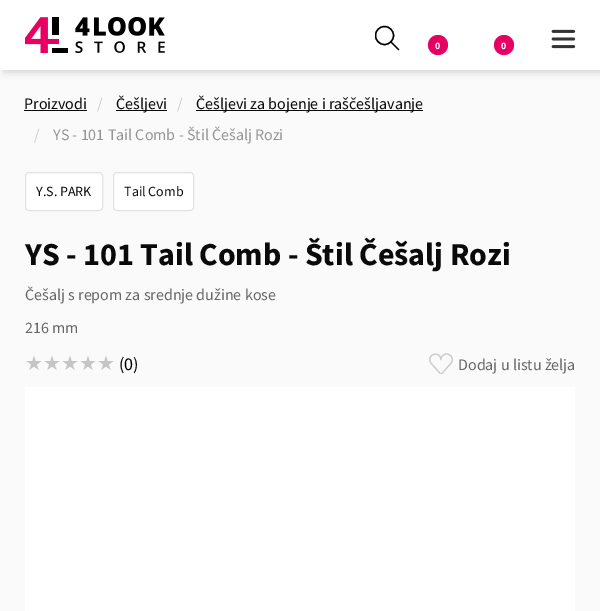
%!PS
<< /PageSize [600 611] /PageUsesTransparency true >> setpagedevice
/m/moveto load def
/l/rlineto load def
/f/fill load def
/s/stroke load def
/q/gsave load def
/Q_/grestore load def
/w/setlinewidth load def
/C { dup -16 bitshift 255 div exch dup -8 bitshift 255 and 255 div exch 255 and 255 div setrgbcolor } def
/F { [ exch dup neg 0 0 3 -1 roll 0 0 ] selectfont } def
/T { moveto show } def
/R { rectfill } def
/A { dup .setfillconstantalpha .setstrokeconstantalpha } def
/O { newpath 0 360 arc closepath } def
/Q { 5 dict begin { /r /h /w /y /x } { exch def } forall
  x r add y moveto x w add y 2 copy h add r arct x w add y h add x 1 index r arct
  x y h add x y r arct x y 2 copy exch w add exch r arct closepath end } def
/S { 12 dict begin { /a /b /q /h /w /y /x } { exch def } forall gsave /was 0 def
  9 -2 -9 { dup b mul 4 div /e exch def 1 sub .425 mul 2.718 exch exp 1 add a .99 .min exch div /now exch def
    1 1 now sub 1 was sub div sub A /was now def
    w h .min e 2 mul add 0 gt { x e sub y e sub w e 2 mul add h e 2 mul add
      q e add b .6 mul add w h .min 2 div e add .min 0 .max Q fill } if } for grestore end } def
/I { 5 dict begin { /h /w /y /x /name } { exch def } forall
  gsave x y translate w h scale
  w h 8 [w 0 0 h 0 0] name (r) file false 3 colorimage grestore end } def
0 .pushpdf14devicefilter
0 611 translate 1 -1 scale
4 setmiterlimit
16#FAFAFA C
0 0 600 611 R
16#000000 C
4 4 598 68 0 3.5 .16 S
16#FFFFFF C
0 0 600 70 R
(1.rgb) 25 17 140 36 I
q
375 25 24 26 rectclip
16#000000 C
1.4 w
384.5 35.5 9 O s
Q_
16#000000 C
1.4 w
1 setlinecap
1 setlinejoin
398.5 49.5 m -7.5 -7.5 l s
16#E60064 C
438 45 10 O f
/SourceSansPro-Bold 10 F
16#FFFFFF C
(0) 435 49 T
16#E60064 C
504 45 10 O f
16#FFFFFF C
(0) 501 49 T
(2.rgb) 551 29 25 20 I
/SourceSansPro-Regular 16 F
16#0A0A0A C
(Proizvodi) 24 109 T
24 110 63 1 R
16#CCCCCC C
(/) 97 109 T
16#0A0A0A C
116 110 51 1 R
(Češljevi) 116 109 T
16#CCCCCC C
(/) 177 109 T
16#0A0A0A C
196 110 227 1 R
(Češljevi za bojenje i raščešljavanje) 196 109 T
16#CCCCCC C
(/) 34 140 T
16#959595 C
(YS - 101 Tail Comb - Štil Češalj Rozi) 53 140 T
16#FFFFFF C
25.5 172.5 77 38 3.5 Q q f Q_
16#E1E1E1 C
1 w
0 setlinecap
0 setlinejoin
s
/SourceSansPro-Regular 14 F
16#0A0A0A C
(Y.S. PARK) 36 196 T
16#FFFFFF C
113.5 172.5 80 38 3.5 Q q f Q_
16#E1E1E1 C
s
16#0A0A0A C
(Tail Comb) 124 196 T
/SourceSansPro-Bold 32 F
(YS - 101 Tail Comb - Štil Češalj Rozi) 25 265 T
/SourceSansPro-Regular 16 F
16#676767 C
(Češalj s repom za srednje dužine kose) 25 300 T
(216 mm) 25 333 T
/DejaVuSans-Regular 20 F
16#C5C5C5 C
(★★★★★) 25 370 T
/SourceSansPro-Regular 18 F
16#000000 C
(\(0\)) 119 370 T
(3.rgb) 429 353 24 21 I
/SourceSansPro-Regular 16 F
16#676767 C
(Dodaj u listu želja) 458 370 T
16#FFFFFF C
25 387 550 224 R
.poppdf14devicefilter showpage
